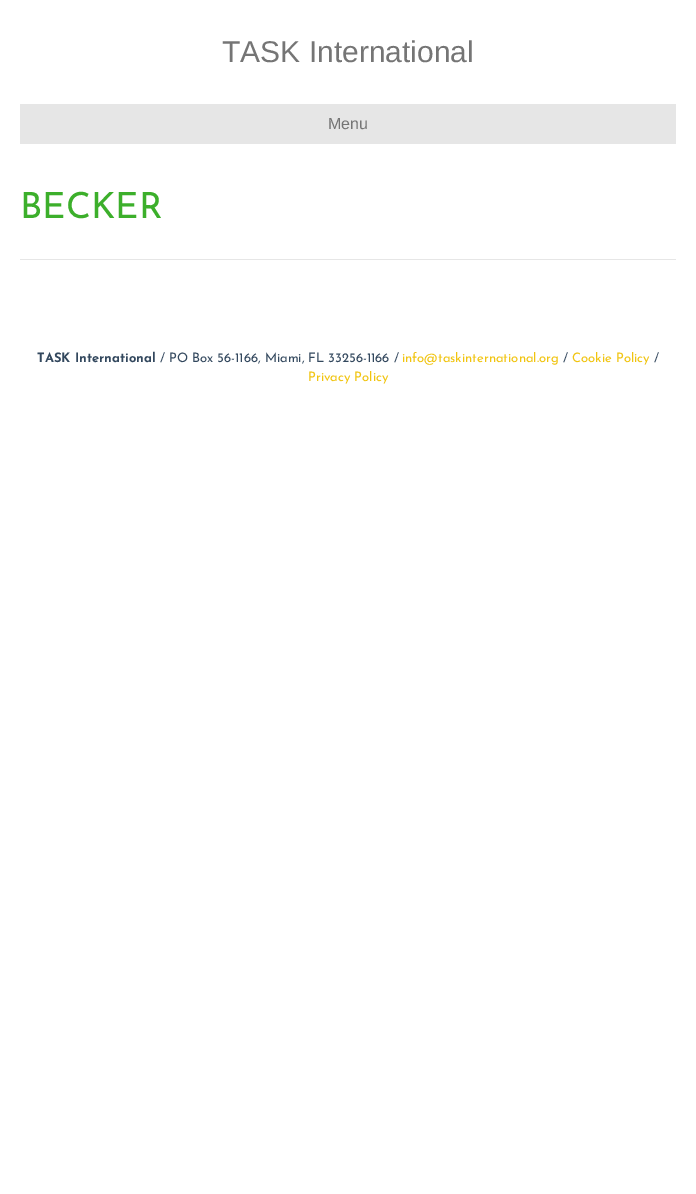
%!PS
<< /PageSize [696 1194] >> setpagedevice
/C { dup -16 bitshift 255 div exch dup -8 bitshift 255 and 255 div exch 255 and 255 div setrgbcolor } def
/F { [ exch dup neg 0 0 3 -1 roll 0 0 ] selectfont } def
/T { moveto show } def
/R { rectfill } def
0 1194 translate 1 -1 scale
4 setmiterlimit
16#FFFFFF C
0 0 696 1194 R
/LiberationSans-Regular 30 F
16#757575 C
(TASK International) 222 62 T
16#E6E6E6 C
20 104 656 40 R
/LiberationSans-Regular 16 F
16#757575 C
(Menu) 328 129 T
/JosefinSans-Regular 36 F
16#3CAF2B C
(BECKER) 20 218 T
16#E6E6E6 C
20 259 656 1 R
/JosefinSans-Bold 13 F
16#33485E C
(TASK International) 37 362 T
/JosefinSans-Regular 13 F
(/ PO Box 56-1166, Miami, FL 33256-1166 /) 160 362 T
16#F1C40E C
(info@taskinternational.org) 402 362 T
16#33485E C
(/) 563 362 T
16#F1C40E C
(Cookie Policy) 572 362 T
16#33485E C
(/) 654 362 T
16#F1C40E C
(Privacy Policy) 308 381 T
showpage
